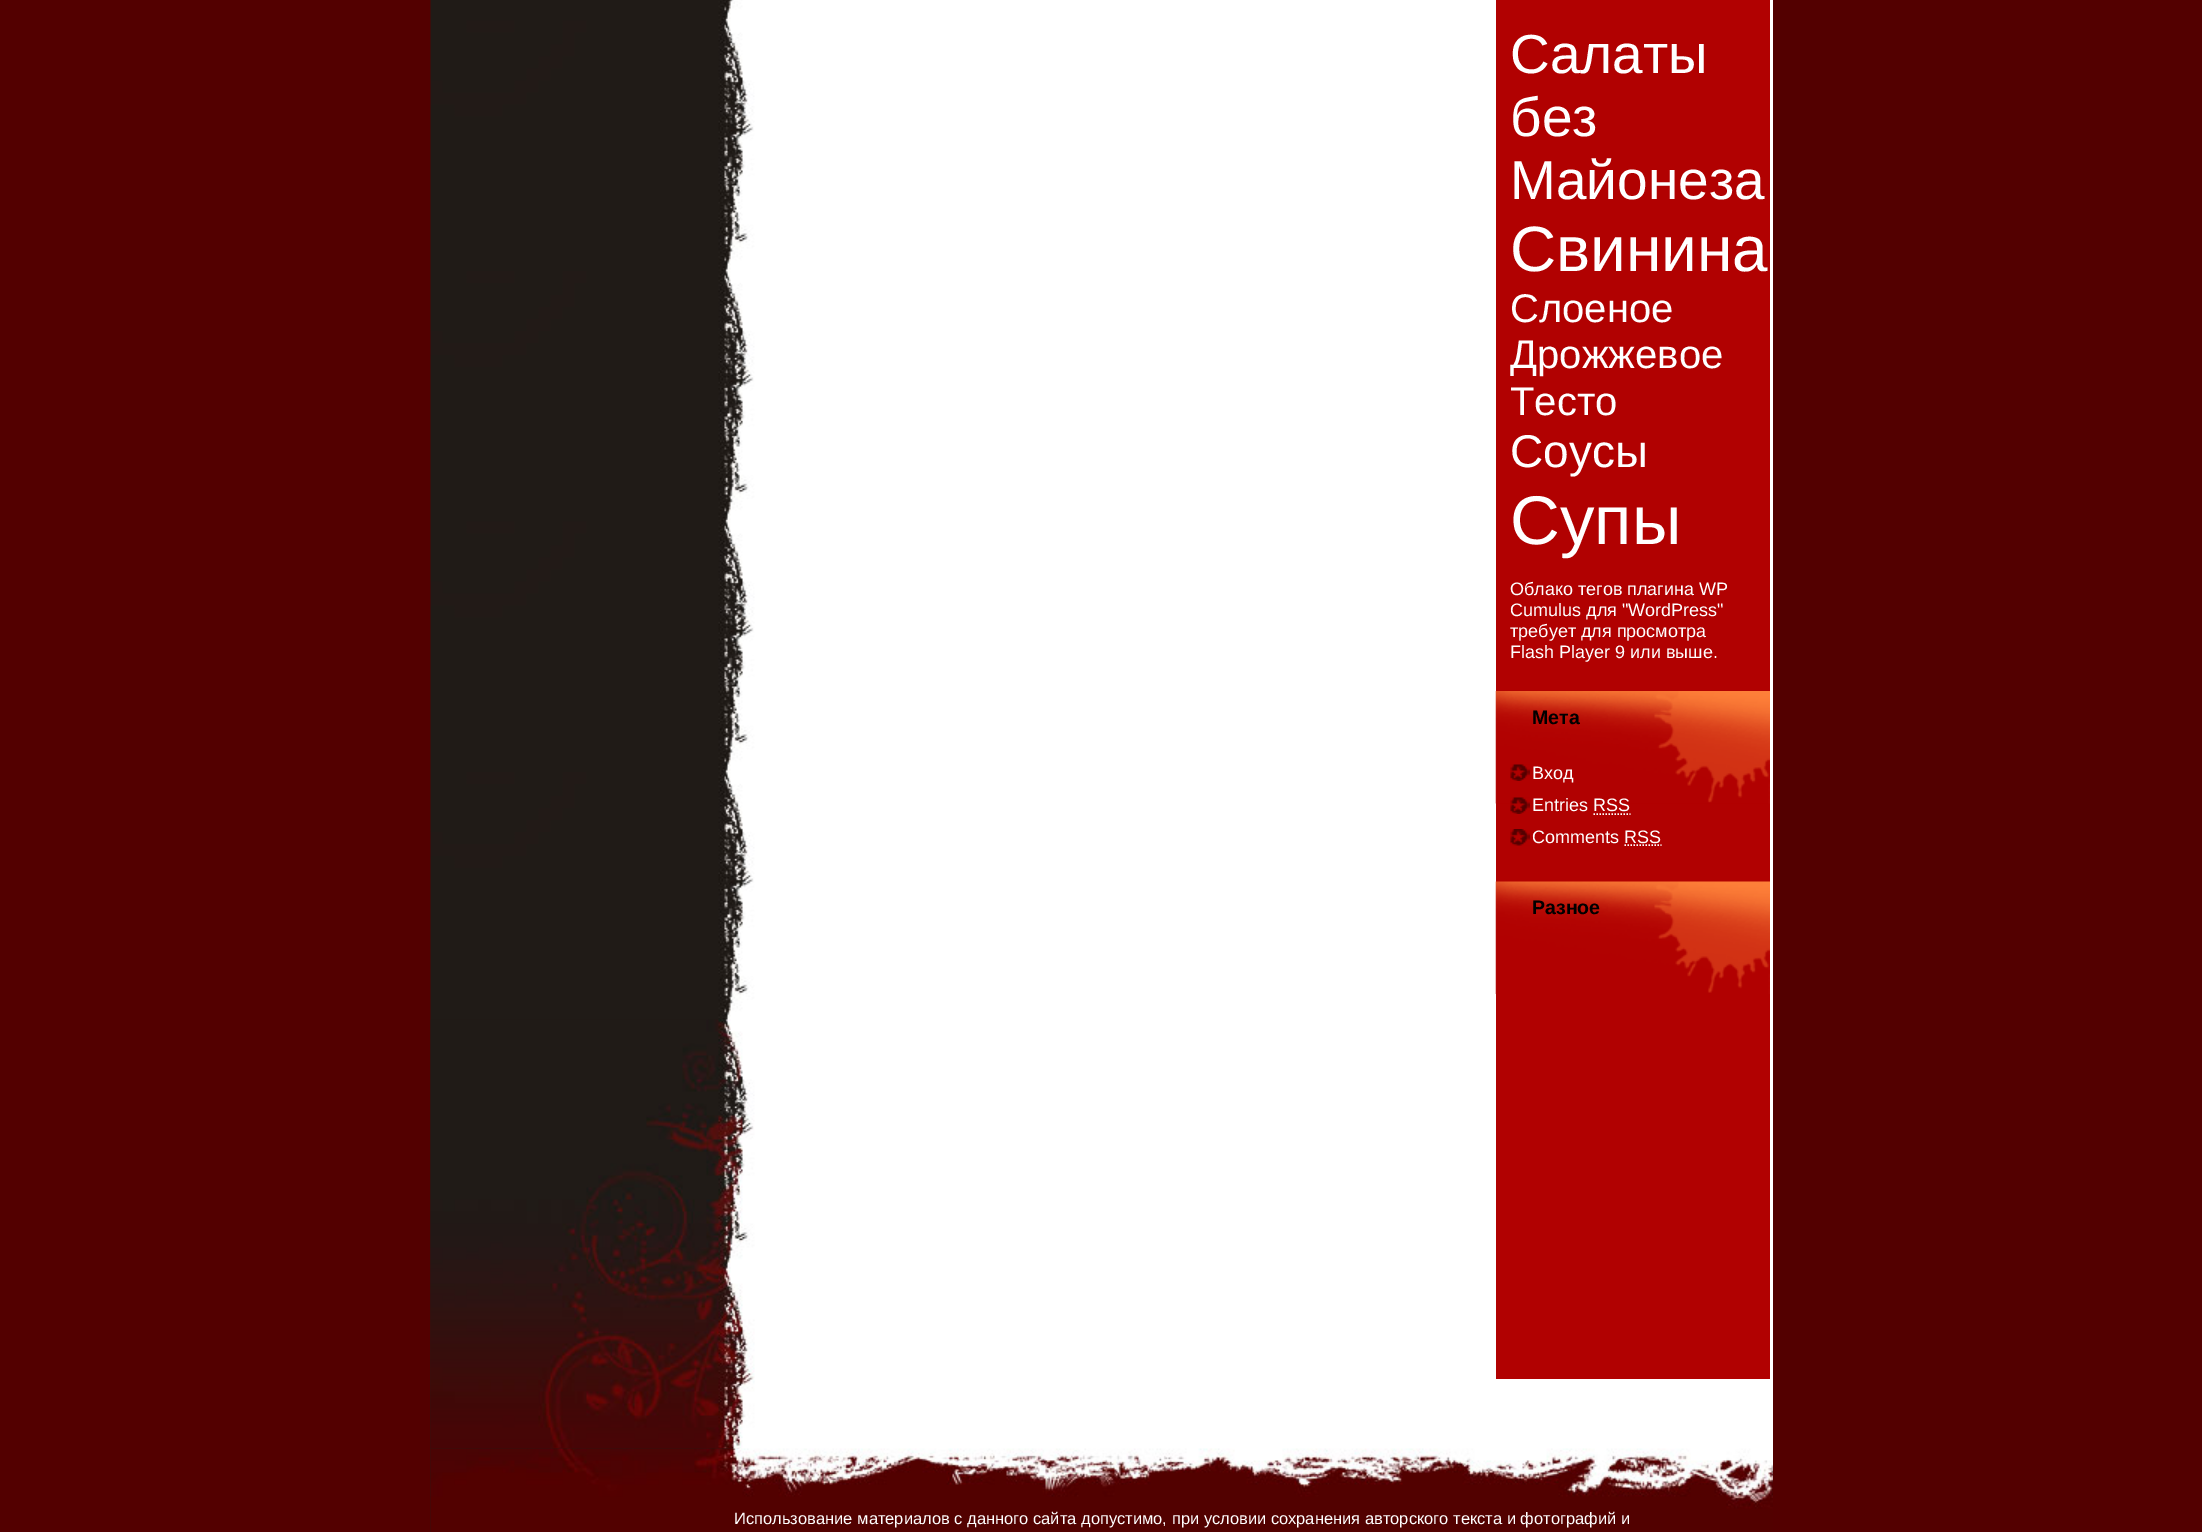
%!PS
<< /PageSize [2202 1532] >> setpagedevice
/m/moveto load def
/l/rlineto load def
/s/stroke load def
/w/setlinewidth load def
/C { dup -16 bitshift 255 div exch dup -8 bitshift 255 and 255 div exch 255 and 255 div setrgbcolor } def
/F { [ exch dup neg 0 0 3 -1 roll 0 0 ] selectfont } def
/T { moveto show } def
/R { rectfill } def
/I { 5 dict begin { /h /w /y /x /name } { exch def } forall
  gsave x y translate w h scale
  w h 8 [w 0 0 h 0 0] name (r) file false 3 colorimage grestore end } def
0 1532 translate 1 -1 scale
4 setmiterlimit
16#530000 C
0 0 2202 1532 R
(1.rgb) 430 0 1343 1532 I
(2.rgb) 430 1019 325 430 I
16#B10101 C
1496 0 274 1379 R
/LiberationSans-Regular 55 F
16#FFFFFF C
(Салаты) 1510 73 T
(без) 1510 136 T
(Майонеза) 1510 199 T
/LiberationSans-Regular 64 F
(Свинина) 1510 271 T
/LiberationSans-Regular 40 F
(Слоеное) 1510 322 T
(Дрожжевое) 1510 368 T
(Тесто) 1510 415 T
/LiberationSans-Regular 46 F
(Соусы) 1510 467 T
/LiberationSans-Regular 69 F
(Супы) 1510 544 T
/LiberationSans-Regular 18 F
(Облако тегов плагина WP) 1510 595 T
(Cumulus для "WordPress") 1510 616 T
(требует для просмотра) 1510 637 T
(Flash Player 9 или выше.) 1510 658 T
(3.rgb) 1495 691 275 113 I
/LiberationSans-Bold 19.5 F
16#000000 C
(Мета) 1532 724 T
(4.rgb) 1510 764 20 17 I
/LiberationSans-Regular 18 F
16#FFFFFF C
(Вход) 1532 779 T
(4.rgb) 1510 797 20 17 I
(Entries RSS) 1532 811 T
1.5 w
[1.5 1.5] 0 setdash
1593.5 814 m 37 0 l s
(5.rgb) 1510 829 20 17 I
(Comments RSS) 1532 843 T
1624.5 845 m 37 0 l s
(6.rgb) 1495 881 275 113 I
/LiberationSans-Bold 19.5 F
16#000000 C
(Разное) 1532 914 T
(7.rgb) 430 1448 1343 84 I
/LiberationSans-Regular 16.5 F
16#FFFFFF C
(Использование материалов с данного сайта допустимо, при условии сохранения авторского текста и фотографий и) 734 1524 T
showpage
